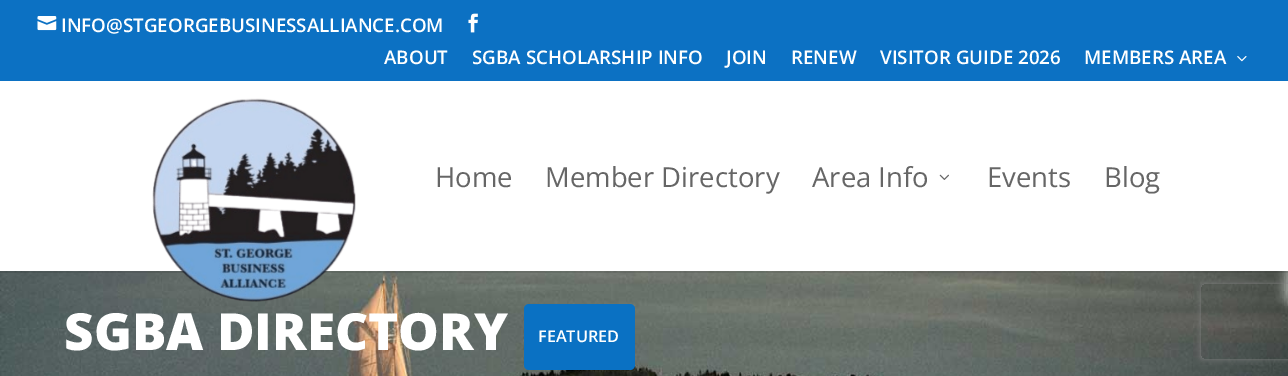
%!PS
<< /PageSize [1288 376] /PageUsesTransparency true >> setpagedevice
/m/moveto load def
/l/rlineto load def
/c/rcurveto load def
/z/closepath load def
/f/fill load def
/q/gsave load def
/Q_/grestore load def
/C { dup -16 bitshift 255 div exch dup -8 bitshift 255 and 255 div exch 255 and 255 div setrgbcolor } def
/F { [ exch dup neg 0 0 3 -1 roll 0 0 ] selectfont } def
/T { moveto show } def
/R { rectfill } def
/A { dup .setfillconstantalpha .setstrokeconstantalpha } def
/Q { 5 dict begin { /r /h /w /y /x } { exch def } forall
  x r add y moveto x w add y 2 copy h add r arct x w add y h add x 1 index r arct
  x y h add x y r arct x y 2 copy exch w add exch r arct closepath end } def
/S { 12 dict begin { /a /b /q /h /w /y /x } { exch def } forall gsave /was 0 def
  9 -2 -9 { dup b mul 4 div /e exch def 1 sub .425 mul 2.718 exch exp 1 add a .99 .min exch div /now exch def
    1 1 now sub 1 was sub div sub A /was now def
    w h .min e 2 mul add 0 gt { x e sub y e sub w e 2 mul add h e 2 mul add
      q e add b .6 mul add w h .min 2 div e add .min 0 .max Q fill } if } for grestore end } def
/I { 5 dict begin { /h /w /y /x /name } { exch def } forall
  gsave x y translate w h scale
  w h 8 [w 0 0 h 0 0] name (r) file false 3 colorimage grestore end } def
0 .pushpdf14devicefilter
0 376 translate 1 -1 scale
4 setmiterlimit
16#FFFFFF C
0 0 1288 376 R
16#0C71C3 C
0 0 1288 81 R
(1.rgb) 37 16 20 15 I
/OpenSans-SemiBold 18.75 F
16#FFFFFF C
(INFO@STGEORGEBUSINESSALLIANCE.COM) 61 32 T
(2.rgb) 468 13 10 20 I
(ABOUT) 384 64 T
(SGBA SCHOLARSHIP INFO) 472 64 T
(JOIN) 726 64 T
(RENEW) 791 64 T
(VISITOR GUIDE 2026) 880 64 T
(MEMBERS AREA) 1084 64 T
(3.rgb) 1237 56 10 6 I
(6.rgb) 0 271 1288 105 I
0.1 A
16#000000 C
0 271 m 0 2 l 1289 0 l 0 -190 l 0 188 l z f
1 A
(4.rgb) 152 98 204 204 I
/OpenSans-Regular 27.5 F
16#666666 C
(Home) 435 187 T
(Member Directory) 545 187 T
(Area Info) 812 187 T
(5.rgb) 939 174 10 6 I
(Events) 987 187 T
(Blog) 1104 187 T
/OpenSans-ExtraBold 51.25 F
16#FFFFFF C
(SGBA DIRECTORY) 64 350 T
16#0A71C3 C
524 304 111 66 5 Q f
/OpenSans-SemiBold 16.25 F
16#FFFFFF C
(FEATURED) 538 342 T
q
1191 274 m 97 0 l 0 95 l -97 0 l z 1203.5 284 m 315 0 l 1.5 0 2.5 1 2.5 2.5 c 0 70 l 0 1.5 -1 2.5 -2.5 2.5 c -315 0 l -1.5 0 -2.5 -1 -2.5 -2.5 c 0 -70 l 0 -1.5 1 -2.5 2.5 -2.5 c z eoclip newpath
16#808080 C
1201 284 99 75 2.5 3 1 S
Q_
.poppdf14devicefilter showpage
